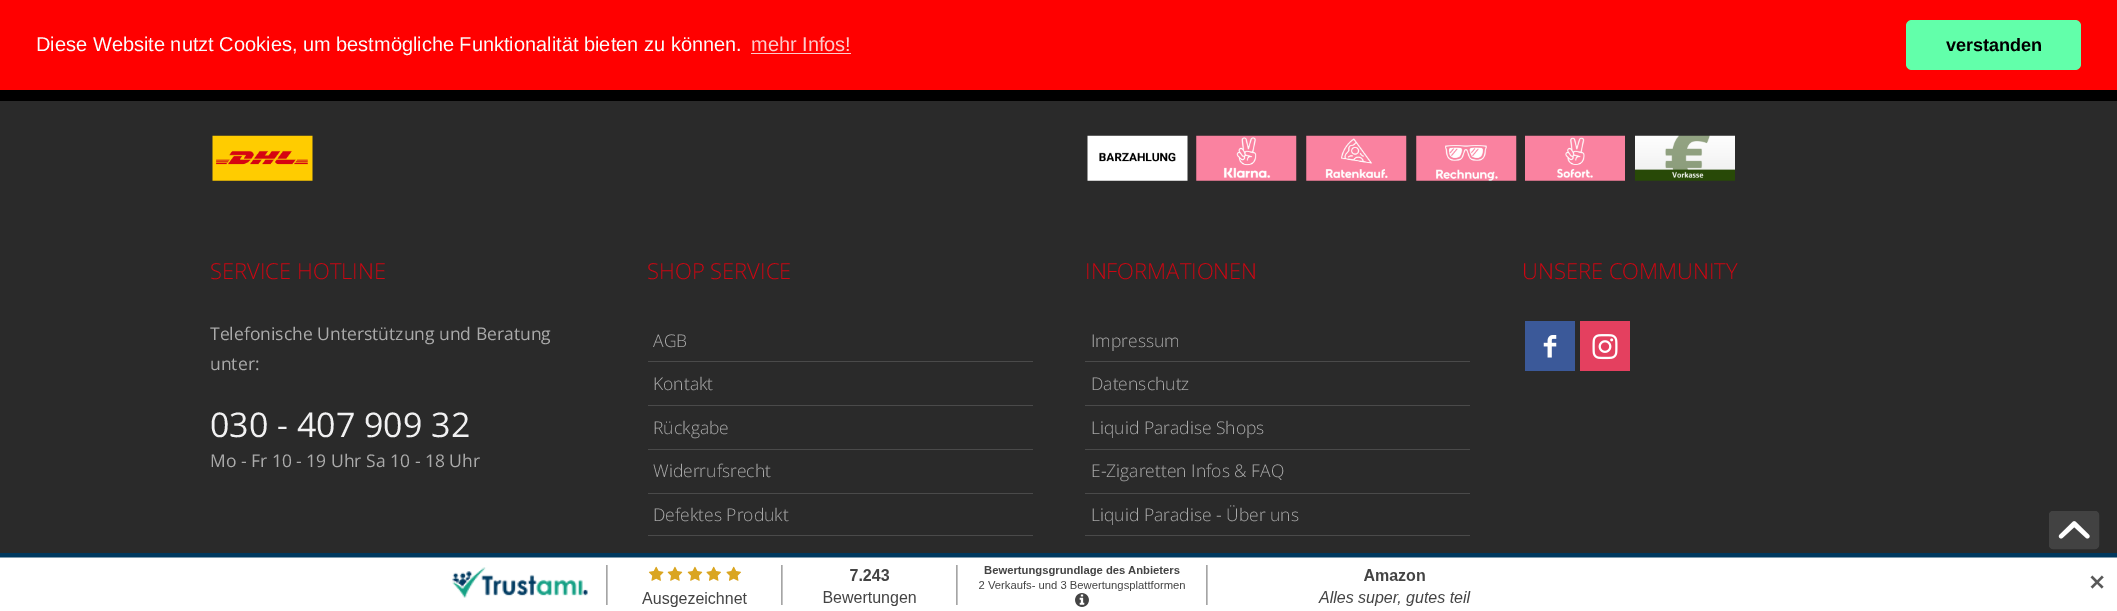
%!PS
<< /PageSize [2117 611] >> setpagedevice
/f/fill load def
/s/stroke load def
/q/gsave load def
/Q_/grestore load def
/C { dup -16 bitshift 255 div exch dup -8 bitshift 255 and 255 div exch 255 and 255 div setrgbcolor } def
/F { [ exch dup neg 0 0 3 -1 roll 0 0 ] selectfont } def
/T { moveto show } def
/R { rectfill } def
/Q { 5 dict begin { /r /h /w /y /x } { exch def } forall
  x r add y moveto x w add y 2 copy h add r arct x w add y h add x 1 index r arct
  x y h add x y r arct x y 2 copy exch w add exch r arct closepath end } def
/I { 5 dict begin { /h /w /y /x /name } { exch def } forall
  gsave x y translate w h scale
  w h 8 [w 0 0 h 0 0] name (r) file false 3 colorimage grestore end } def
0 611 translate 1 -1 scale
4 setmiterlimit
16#000000 C
0 0 2117 611 R
16#FF0000 C
0 0 2117 90 R
/LiberationSans-Regular 20 F
16#FCFCFC C
(Diese Website nutzt Cookies, um bestmögliche Funktionalität bieten zu können.) 36 51 T
16#FDCACA C
(mehr Infos!) 751 51 T
751 53 100 1 R
16#62FFAA C
1906 20 175 50 6 Q f
/LiberationSans-Bold 18 F
16#000000 C
(verstanden) 1946 51 T
16#2A2A2A C
0 101 2117 452 R
(1.rgb) 212 135 101 46 I
(2.rgb) 1087 135 101 46 I
(3.rgb) 1196 135 101 46 I
(4.rgb) 1306 135 101 46 I
(5.rgb) 1416 135 101 46 I
(6.rgb) 1525 135 100 46 I
(7.rgb) 1635 135 100 46 I
/OpenSans-Light 22 F
16#CD0612 C
(SERVICE HOTLINE) 210 279 T
/OpenSans-Regular 17.5 F
16#AAAAAA C
(Telefonische Unterstützung und Beratung) 210 340 T
(unter:) 210 370 T
/OpenSans-Regular 34 F
16#F1F1F2 C
(030 - 407 909 32) 210 437 T
/OpenSans-Regular 17.5 F
16#AAAAAA C
(Mo - Fr 10 - 19 Uhr Sa 10 - 18 Uhr) 210 467 T
/OpenSans-Light 22 F
16#CD0612 C
(SHOP SERVICE) 647 279 T
16#4A4A4A C
648 361 385 1 R
/OpenSans-Light 17.5 F
16#AAAAAA C
(AGB) 653 347 T
16#4A4A4A C
648 405 385 1 R
16#AAAAAA C
(Kontakt) 653 390 T
16#4A4A4A C
648 449 385 1 R
16#AAAAAA C
(Rückgabe) 653 434 T
16#4A4A4A C
648 493 385 1 R
16#AAAAAA C
(Widerrufsrecht) 653 477 T
16#4A4A4A C
648 535 385 1 R
16#AAAAAA C
(Defektes Produkt) 653 521 T
/OpenSans-Light 22 F
16#CD0612 C
(INFORMATIONEN) 1085 279 T
16#4A4A4A C
1085 361 385 1 R
/OpenSans-Light 17.5 F
16#AAAAAA C
(Impressum) 1091 347 T
16#4A4A4A C
1085 405 385 1 R
16#AAAAAA C
(Datenschutz) 1091 390 T
16#4A4A4A C
1085 449 385 1 R
16#AAAAAA C
(Liquid Paradise Shops) 1091 434 T
16#4A4A4A C
1085 493 385 1 R
16#AAAAAA C
(E-Zigaretten Infos & FAQ) 1091 477 T
16#4A4A4A C
1085 535 385 1 R
16#AAAAAA C
(Liquid Paradise - Über uns) 1091 521 T
/OpenSans-Light 22 F
16#CD0612 C
(UNSERE COMMUNITY) 1522 279 T
16#3B5999 C
1525 321 50 50 R
(8.rgb) 1543 335 14 23 I
16#E4405F C
1580 321 50 50 R
(9.rgb) 1592 334 26 26 I
(10.rgb) 0 553 2117 58 I
/DejaVuSans-Bold 21 F
16#595959 C
(✕) 2088 590 T
16#424242 C
2049.5 511.5 49 37 3.5 Q q f Q_
s
(11.rgb) 2058 521 32 18 I
showpage
